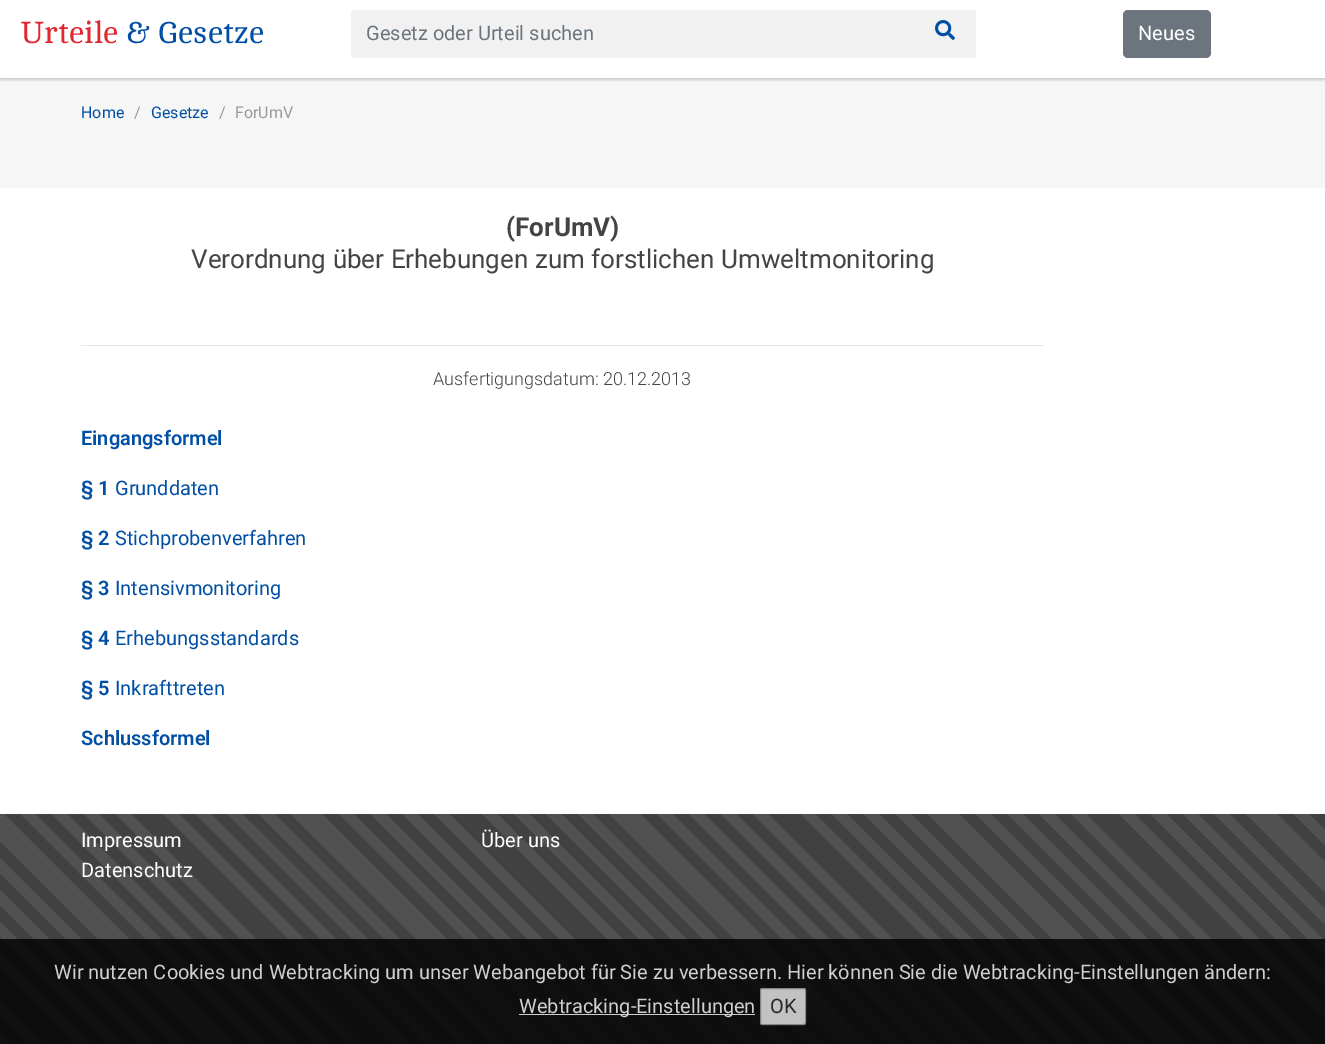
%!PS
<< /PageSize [1325 1044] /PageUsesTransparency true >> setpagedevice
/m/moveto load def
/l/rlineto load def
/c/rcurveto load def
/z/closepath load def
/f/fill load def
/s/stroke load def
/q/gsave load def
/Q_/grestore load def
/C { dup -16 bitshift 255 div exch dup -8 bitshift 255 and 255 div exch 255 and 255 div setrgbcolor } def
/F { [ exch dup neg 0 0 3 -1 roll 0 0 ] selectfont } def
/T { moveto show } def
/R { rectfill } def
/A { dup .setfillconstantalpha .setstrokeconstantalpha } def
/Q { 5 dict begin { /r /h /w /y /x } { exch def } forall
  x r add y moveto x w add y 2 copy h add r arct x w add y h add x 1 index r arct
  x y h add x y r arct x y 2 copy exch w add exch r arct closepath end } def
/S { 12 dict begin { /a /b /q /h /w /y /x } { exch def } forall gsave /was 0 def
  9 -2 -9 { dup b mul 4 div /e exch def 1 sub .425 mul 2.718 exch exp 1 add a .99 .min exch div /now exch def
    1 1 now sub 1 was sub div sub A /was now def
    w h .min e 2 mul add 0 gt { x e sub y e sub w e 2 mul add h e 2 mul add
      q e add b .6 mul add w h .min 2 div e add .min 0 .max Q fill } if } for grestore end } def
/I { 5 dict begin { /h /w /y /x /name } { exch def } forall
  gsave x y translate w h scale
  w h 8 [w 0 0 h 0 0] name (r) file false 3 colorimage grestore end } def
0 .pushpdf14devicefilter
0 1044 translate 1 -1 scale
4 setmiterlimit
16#F6F6F6 C
0 0 1325 1044 R
16#14171C C
0 4 1325 77 0 .5 .1 S
-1 -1 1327 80 0 .5 .1 S
16#FFFFFF C
0 0 1325 78 R
/Cambo-Regular 31.25 F
16#E12830 C
(Urteile) 20 43 T
16#014FA4 C
(& Gesetze) 126 43 T
16#F1F1F1 C
356 10 m 558 0 l 0 48 l -558 0 l -3 0 -5 -2 -5 -5 c 0 -38 l 0 -3 2 -5 5 -5 c z f
/Roboto-Regular 20 F
16#6C757D C
(Gesetz oder Urteil suchen) 366 40 T
16#F1F1F1 C
914 10 62 48 R
(1.rgb) 935 20 20 20 I
16#6C757D C
1123 10 88 48 5 Q f
16#FFFFFF C
(Neues) 1138 40 T
/Roboto-Regular 16 F
16#014FA4 C
(Home) 81 118 T
16#999999 C
(/) 134 118 T
16#014FA4 C
(Gesetze) 151 118 T
16#999999 C
(/) 219 118 T
(ForUmV) 235 118 T
16#FFFFFF C
0 188 1325 626 R
/Roboto-Bold 26 F
16#444444 C
(\(ForUmV\)) 506 236 T
/Roboto-Regular 26 F
(Verordnung über Erhebungen zum forstlichen Umweltmonitoring) 191 268 T
16#E6E6E6 C
81 345 963 1 R
/Roboto-Light 18 F
16#444444 C
(Ausfertigungsdatum: 20.12.2013) 433 385 T
/Roboto-SemiBold 20 F
16#014FA4 C
(Eingangsformel) 81 445 T
(§ 1) 81 495 T
/Roboto-Regular 20 F
(Grunddaten) 115 495 T
/Roboto-SemiBold 20 F
(§ 2) 81 545 T
/Roboto-Regular 20 F
(Stichprobenverfahren) 115 545 T
/Roboto-SemiBold 20 F
(§ 3) 81 595 T
/Roboto-Regular 20 F
(Intensivmonitoring) 115 595 T
/Roboto-SemiBold 20 F
(§ 4) 81 645 T
/Roboto-Regular 20 F
(Erhebungsstandards) 115 645 T
/Roboto-SemiBold 20 F
(§ 5) 81 695 T
/Roboto-Regular 20 F
(Inkrafttreten) 115 695 T
/Roboto-SemiBold 20 F
(Schlussformel) 81 745 T
q 0 814 m 1325 0 l 0 125 l -1325 0 l z clip newpath
<< /ShadingType 2 /ColorSpace /DeviceRGB /Coords [269 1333 1064 537] /Extend [true true] /Function << /FunctionType 3 /Domain [0 1] /Functions [<< /FunctionType 2 /Domain [0 1] /C0 [.255 .255 .255] /C1 [.255 .255 .255] /N 1 >> << /FunctionType 2 /Domain [0 1] /C0 [.318 .318 .318] /C1 [.318 .318 .318] /N 1 >> << /FunctionType 2 /Domain [0 1] /C0 [.255 .255 .255] /C1 [.255 .255 .255] /N 1 >> << /FunctionType 2 /Domain [0 1] /C0 [.318 .318 .318] /C1 [.318 .318 .318] /N 1 >> << /FunctionType 2 /Domain [0 1] /C0 [.255 .255 .255] /C1 [.255 .255 .255] /N 1 >> << /FunctionType 2 /Domain [0 1] /C0 [.318 .318 .318] /C1 [.318 .318 .318] /N 1 >> << /FunctionType 2 /Domain [0 1] /C0 [.255 .255 .255] /C1 [.255 .255 .255] /N 1 >> << /FunctionType 2 /Domain [0 1] /C0 [.318 .318 .318] /C1 [.318 .318 .318] /N 1 >> << /FunctionType 2 /Domain [0 1] /C0 [.255 .255 .255] /C1 [.255 .255 .255] /N 1 >> << /FunctionType 2 /Domain [0 1] /C0 [.318 .318 .318] /C1 [.318 .318 .318] /N 1 >> << /FunctionType 2 /Domain [0 1] /C0 [.255 .255 .255] /C1 [.255 .255 .255] /N 1 >> << /FunctionType 2 /Domain [0 1] /C0 [.318 .318 .318] /C1 [.318 .318 .318] /N 1 >> << /FunctionType 2 /Domain [0 1] /C0 [.255 .255 .255] /C1 [.255 .255 .255] /N 1 >> << /FunctionType 2 /Domain [0 1] /C0 [.318 .318 .318] /C1 [.318 .318 .318] /N 1 >> << /FunctionType 2 /Domain [0 1] /C0 [.255 .255 .255] /C1 [.255 .255 .255] /N 1 >> << /FunctionType 2 /Domain [0 1] /C0 [.318 .318 .318] /C1 [.318 .318 .318] /N 1 >> << /FunctionType 2 /Domain [0 1] /C0 [.255 .255 .255] /C1 [.255 .255 .255] /N 1 >> << /FunctionType 2 /Domain [0 1] /C0 [.318 .318 .318] /C1 [.318 .318 .318] /N 1 >> << /FunctionType 2 /Domain [0 1] /C0 [.255 .255 .255] /C1 [.255 .255 .255] /N 1 >> << /FunctionType 2 /Domain [0 1] /C0 [.318 .318 .318] /C1 [.318 .318 .318] /N 1 >> << /FunctionType 2 /Domain [0 1] /C0 [.255 .255 .255] /C1 [.255 .255 .255] /N 1 >> << /FunctionType 2 /Domain [0 1] /C0 [.318 .318 .318] /C1 [.318 .318 .318] /N 1 >> << /FunctionType 2 /Domain [0 1] /C0 [.255 .255 .255] /C1 [.255 .255 .255] /N 1 >> << /FunctionType 2 /Domain [0 1] /C0 [.318 .318 .318] /C1 [.318 .318 .318] /N 1 >> << /FunctionType 2 /Domain [0 1] /C0 [.255 .255 .255] /C1 [.255 .255 .255] /N 1 >> << /FunctionType 2 /Domain [0 1] /C0 [.318 .318 .318] /C1 [.318 .318 .318] /N 1 >> << /FunctionType 2 /Domain [0 1] /C0 [.255 .255 .255] /C1 [.255 .255 .255] /N 1 >> << /FunctionType 2 /Domain [0 1] /C0 [.318 .318 .318] /C1 [.318 .318 .318] /N 1 >> << /FunctionType 2 /Domain [0 1] /C0 [.255 .255 .255] /C1 [.255 .255 .255] /N 1 >> << /FunctionType 2 /Domain [0 1] /C0 [.318 .318 .318] /C1 [.318 .318 .318] /N 1 >> << /FunctionType 2 /Domain [0 1] /C0 [.255 .255 .255] /C1 [.255 .255 .255] /N 1 >> << /FunctionType 2 /Domain [0 1] /C0 [.318 .318 .318] /C1 [.318 .318 .318] /N 1 >> << /FunctionType 2 /Domain [0 1] /C0 [.255 .255 .255] /C1 [.255 .255 .255] /N 1 >> << /FunctionType 2 /Domain [0 1] /C0 [.318 .318 .318] /C1 [.318 .318 .318] /N 1 >> << /FunctionType 2 /Domain [0 1] /C0 [.255 .255 .255] /C1 [.255 .255 .255] /N 1 >> << /FunctionType 2 /Domain [0 1] /C0 [.318 .318 .318] /C1 [.318 .318 .318] /N 1 >> << /FunctionType 2 /Domain [0 1] /C0 [.255 .255 .255] /C1 [.255 .255 .255] /N 1 >> << /FunctionType 2 /Domain [0 1] /C0 [.318 .318 .318] /C1 [.318 .318 .318] /N 1 >> << /FunctionType 2 /Domain [0 1] /C0 [.255 .255 .255] /C1 [.255 .255 .255] /N 1 >> << /FunctionType 2 /Domain [0 1] /C0 [.318 .318 .318] /C1 [.318 .318 .318] /N 1 >> << /FunctionType 2 /Domain [0 1] /C0 [.255 .255 .255] /C1 [.255 .255 .255] /N 1 >> << /FunctionType 2 /Domain [0 1] /C0 [.318 .318 .318] /C1 [.318 .318 .318] /N 1 >> << /FunctionType 2 /Domain [0 1] /C0 [.255 .255 .255] /C1 [.255 .255 .255] /N 1 >> << /FunctionType 2 /Domain [0 1] /C0 [.318 .318 .318] /C1 [.318 .318 .318] /N 1 >> << /FunctionType 2 /Domain [0 1] /C0 [.255 .255 .255] /C1 [.255 .255 .255] /N 1 >> << /FunctionType 2 /Domain [0 1] /C0 [.318 .318 .318] /C1 [.318 .318 .318] /N 1 >> << /FunctionType 2 /Domain [0 1] /C0 [.255 .255 .255] /C1 [.255 .255 .255] /N 1 >> << /FunctionType 2 /Domain [0 1] /C0 [.318 .318 .318] /C1 [.318 .318 .318] /N 1 >> << /FunctionType 2 /Domain [0 1] /C0 [.255 .255 .255] /C1 [.255 .255 .255] /N 1 >> << /FunctionType 2 /Domain [0 1] /C0 [.318 .318 .318] /C1 [.318 .318 .318] /N 1 >> << /FunctionType 2 /Domain [0 1] /C0 [.255 .255 .255] /C1 [.255 .255 .255] /N 1 >> << /FunctionType 2 /Domain [0 1] /C0 [.318 .318 .318] /C1 [.318 .318 .318] /N 1 >> << /FunctionType 2 /Domain [0 1] /C0 [.255 .255 .255] /C1 [.255 .255 .255] /N 1 >> << /FunctionType 2 /Domain [0 1] /C0 [.318 .318 .318] /C1 [.318 .318 .318] /N 1 >> << /FunctionType 2 /Domain [0 1] /C0 [.255 .255 .255] /C1 [.255 .255 .255] /N 1 >> << /FunctionType 2 /Domain [0 1] /C0 [.318 .318 .318] /C1 [.318 .318 .318] /N 1 >> << /FunctionType 2 /Domain [0 1] /C0 [.255 .255 .255] /C1 [.255 .255 .255] /N 1 >> << /FunctionType 2 /Domain [0 1] /C0 [.318 .318 .318] /C1 [.318 .318 .318] /N 1 >> << /FunctionType 2 /Domain [0 1] /C0 [.255 .255 .255] /C1 [.255 .255 .255] /N 1 >> << /FunctionType 2 /Domain [0 1] /C0 [.318 .318 .318] /C1 [.318 .318 .318] /N 1 >> << /FunctionType 2 /Domain [0 1] /C0 [.255 .255 .255] /C1 [.255 .255 .255] /N 1 >> << /FunctionType 2 /Domain [0 1] /C0 [.318 .318 .318] /C1 [.318 .318 .318] /N 1 >> << /FunctionType 2 /Domain [0 1] /C0 [.255 .255 .255] /C1 [.255 .255 .255] /N 1 >> << /FunctionType 2 /Domain [0 1] /C0 [.318 .318 .318] /C1 [.318 .318 .318] /N 1 >> << /FunctionType 2 /Domain [0 1] /C0 [.255 .255 .255] /C1 [.255 .255 .255] /N 1 >> << /FunctionType 2 /Domain [0 1] /C0 [.318 .318 .318] /C1 [.318 .318 .318] /N 1 >> << /FunctionType 2 /Domain [0 1] /C0 [.255 .255 .255] /C1 [.255 .255 .255] /N 1 >> << /FunctionType 2 /Domain [0 1] /C0 [.318 .318 .318] /C1 [.318 .318 .318] /N 1 >> << /FunctionType 2 /Domain [0 1] /C0 [.255 .255 .255] /C1 [.255 .255 .255] /N 1 >> << /FunctionType 2 /Domain [0 1] /C0 [.318 .318 .318] /C1 [.318 .318 .318] /N 1 >> << /FunctionType 2 /Domain [0 1] /C0 [.255 .255 .255] /C1 [.255 .255 .255] /N 1 >> << /FunctionType 2 /Domain [0 1] /C0 [.318 .318 .318] /C1 [.318 .318 .318] /N 1 >> << /FunctionType 2 /Domain [0 1] /C0 [.255 .255 .255] /C1 [.255 .255 .255] /N 1 >> << /FunctionType 2 /Domain [0 1] /C0 [.318 .318 .318] /C1 [.318 .318 .318] /N 1 >> << /FunctionType 2 /Domain [0 1] /C0 [.255 .255 .255] /C1 [.255 .255 .255] /N 1 >> << /FunctionType 2 /Domain [0 1] /C0 [.318 .318 .318] /C1 [.318 .318 .318] /N 1 >> << /FunctionType 2 /Domain [0 1] /C0 [.255 .255 .255] /C1 [.255 .255 .255] /N 1 >> << /FunctionType 2 /Domain [0 1] /C0 [.318 .318 .318] /C1 [.318 .318 .318] /N 1 >> << /FunctionType 2 /Domain [0 1] /C0 [.255 .255 .255] /C1 [.255 .255 .255] /N 1 >> << /FunctionType 2 /Domain [0 1] /C0 [.318 .318 .318] /C1 [.318 .318 .318] /N 1 >> << /FunctionType 2 /Domain [0 1] /C0 [.255 .255 .255] /C1 [.255 .255 .255] /N 1 >> << /FunctionType 2 /Domain [0 1] /C0 [.318 .318 .318] /C1 [.318 .318 .318] /N 1 >> << /FunctionType 2 /Domain [0 1] /C0 [.255 .255 .255] /C1 [.255 .255 .255] /N 1 >> << /FunctionType 2 /Domain [0 1] /C0 [.318 .318 .318] /C1 [.318 .318 .318] /N 1 >> << /FunctionType 2 /Domain [0 1] /C0 [.255 .255 .255] /C1 [.255 .255 .255] /N 1 >> << /FunctionType 2 /Domain [0 1] /C0 [.318 .318 .318] /C1 [.318 .318 .318] /N 1 >> << /FunctionType 2 /Domain [0 1] /C0 [.255 .255 .255] /C1 [.255 .255 .255] /N 1 >> << /FunctionType 2 /Domain [0 1] /C0 [.318 .318 .318] /C1 [.318 .318 .318] /N 1 >> << /FunctionType 2 /Domain [0 1] /C0 [.255 .255 .255] /C1 [.255 .255 .255] /N 1 >> << /FunctionType 2 /Domain [0 1] /C0 [.318 .318 .318] /C1 [.318 .318 .318] /N 1 >>] /Bounds [.01 .02 .03 .04 .06 .07 .08 .09 .1 .11 .12 .13 .14 .16 .17 .18 .19 .2 .21 .22 .23 .24 .26 .27 .28 .29 .3 .31 .32 .33 .34 .36 .37 .38 .39 .4 .41 .42 .43 .44 .46 .47 .48 .49 .5 .51 .52 .53 .54 .56 .57 .58 .59 .6 .61 .62 .63 .64 .66 .67 .68 .69 .7 .71 .72 .73 .74 .76 .77 .78 .79 .8 .81 .82 .83 .84 .86 .87 .88 .89 .9 .91 .92 .93 .94 .96 .97 .98 .99] /Encode [0 1 0 1 0 1 0 1 0 1 0 1 0 1 0 1 0 1 0 1 0 1 0 1 0 1 0 1 0 1 0 1 0 1 0 1 0 1 0 1 0 1 0 1 0 1 0 1 0 1 0 1 0 1 0 1 0 1 0 1 0 1 0 1 0 1 0 1 0 1 0 1 0 1 0 1 0 1 0 1 0 1 0 1 0 1 0 1 0 1 0 1 0 1 0 1 0 1 0 1 0 1 0 1 0 1 0 1 0 1 0 1 0 1 0 1 0 1 0 1 0 1 0 1 0 1 0 1 0 1 0 1 0 1 0 1 0 1 0 1 0 1 0 1 0 1 0 1 0 1 0 1 0 1 0 1 0 1 0 1 0 1 0 1 0 1 0 1 0 1 0 1 0 1 0 1 0 1 0 1] >> >> shfill Q_
q 0 939 m 1325 0 l 0 105 l -1325 0 l z clip newpath
<< /ShadingType 2 /ColorSpace /DeviceRGB /Coords [269 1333 1064 537] /Extend [true true] /Function << /FunctionType 3 /Domain [0 1] /Functions [<< /FunctionType 2 /Domain [0 1] /C0 [.051 .051 .051] /C1 [.051 .051 .051] /N 1 >> << /FunctionType 2 /Domain [0 1] /C0 [.063 .063 .063] /C1 [.063 .063 .063] /N 1 >> << /FunctionType 2 /Domain [0 1] /C0 [.051 .051 .051] /C1 [.051 .051 .051] /N 1 >> << /FunctionType 2 /Domain [0 1] /C0 [.063 .063 .063] /C1 [.063 .063 .063] /N 1 >> << /FunctionType 2 /Domain [0 1] /C0 [.051 .051 .051] /C1 [.051 .051 .051] /N 1 >> << /FunctionType 2 /Domain [0 1] /C0 [.063 .063 .063] /C1 [.063 .063 .063] /N 1 >> << /FunctionType 2 /Domain [0 1] /C0 [.051 .051 .051] /C1 [.051 .051 .051] /N 1 >> << /FunctionType 2 /Domain [0 1] /C0 [.063 .063 .063] /C1 [.063 .063 .063] /N 1 >> << /FunctionType 2 /Domain [0 1] /C0 [.051 .051 .051] /C1 [.051 .051 .051] /N 1 >> << /FunctionType 2 /Domain [0 1] /C0 [.063 .063 .063] /C1 [.063 .063 .063] /N 1 >> << /FunctionType 2 /Domain [0 1] /C0 [.051 .051 .051] /C1 [.051 .051 .051] /N 1 >> << /FunctionType 2 /Domain [0 1] /C0 [.063 .063 .063] /C1 [.063 .063 .063] /N 1 >> << /FunctionType 2 /Domain [0 1] /C0 [.051 .051 .051] /C1 [.051 .051 .051] /N 1 >> << /FunctionType 2 /Domain [0 1] /C0 [.063 .063 .063] /C1 [.063 .063 .063] /N 1 >> << /FunctionType 2 /Domain [0 1] /C0 [.051 .051 .051] /C1 [.051 .051 .051] /N 1 >> << /FunctionType 2 /Domain [0 1] /C0 [.063 .063 .063] /C1 [.063 .063 .063] /N 1 >> << /FunctionType 2 /Domain [0 1] /C0 [.051 .051 .051] /C1 [.051 .051 .051] /N 1 >> << /FunctionType 2 /Domain [0 1] /C0 [.063 .063 .063] /C1 [.063 .063 .063] /N 1 >> << /FunctionType 2 /Domain [0 1] /C0 [.051 .051 .051] /C1 [.051 .051 .051] /N 1 >> << /FunctionType 2 /Domain [0 1] /C0 [.063 .063 .063] /C1 [.063 .063 .063] /N 1 >> << /FunctionType 2 /Domain [0 1] /C0 [.051 .051 .051] /C1 [.051 .051 .051] /N 1 >> << /FunctionType 2 /Domain [0 1] /C0 [.063 .063 .063] /C1 [.063 .063 .063] /N 1 >> << /FunctionType 2 /Domain [0 1] /C0 [.051 .051 .051] /C1 [.051 .051 .051] /N 1 >> << /FunctionType 2 /Domain [0 1] /C0 [.063 .063 .063] /C1 [.063 .063 .063] /N 1 >> << /FunctionType 2 /Domain [0 1] /C0 [.051 .051 .051] /C1 [.051 .051 .051] /N 1 >> << /FunctionType 2 /Domain [0 1] /C0 [.063 .063 .063] /C1 [.063 .063 .063] /N 1 >> << /FunctionType 2 /Domain [0 1] /C0 [.051 .051 .051] /C1 [.051 .051 .051] /N 1 >> << /FunctionType 2 /Domain [0 1] /C0 [.063 .063 .063] /C1 [.063 .063 .063] /N 1 >> << /FunctionType 2 /Domain [0 1] /C0 [.051 .051 .051] /C1 [.051 .051 .051] /N 1 >> << /FunctionType 2 /Domain [0 1] /C0 [.063 .063 .063] /C1 [.063 .063 .063] /N 1 >> << /FunctionType 2 /Domain [0 1] /C0 [.051 .051 .051] /C1 [.051 .051 .051] /N 1 >> << /FunctionType 2 /Domain [0 1] /C0 [.063 .063 .063] /C1 [.063 .063 .063] /N 1 >> << /FunctionType 2 /Domain [0 1] /C0 [.051 .051 .051] /C1 [.051 .051 .051] /N 1 >> << /FunctionType 2 /Domain [0 1] /C0 [.063 .063 .063] /C1 [.063 .063 .063] /N 1 >> << /FunctionType 2 /Domain [0 1] /C0 [.051 .051 .051] /C1 [.051 .051 .051] /N 1 >> << /FunctionType 2 /Domain [0 1] /C0 [.063 .063 .063] /C1 [.063 .063 .063] /N 1 >> << /FunctionType 2 /Domain [0 1] /C0 [.051 .051 .051] /C1 [.051 .051 .051] /N 1 >> << /FunctionType 2 /Domain [0 1] /C0 [.063 .063 .063] /C1 [.063 .063 .063] /N 1 >> << /FunctionType 2 /Domain [0 1] /C0 [.051 .051 .051] /C1 [.051 .051 .051] /N 1 >> << /FunctionType 2 /Domain [0 1] /C0 [.063 .063 .063] /C1 [.063 .063 .063] /N 1 >> << /FunctionType 2 /Domain [0 1] /C0 [.051 .051 .051] /C1 [.051 .051 .051] /N 1 >> << /FunctionType 2 /Domain [0 1] /C0 [.063 .063 .063] /C1 [.063 .063 .063] /N 1 >> << /FunctionType 2 /Domain [0 1] /C0 [.051 .051 .051] /C1 [.051 .051 .051] /N 1 >> << /FunctionType 2 /Domain [0 1] /C0 [.063 .063 .063] /C1 [.063 .063 .063] /N 1 >> << /FunctionType 2 /Domain [0 1] /C0 [.051 .051 .051] /C1 [.051 .051 .051] /N 1 >> << /FunctionType 2 /Domain [0 1] /C0 [.063 .063 .063] /C1 [.063 .063 .063] /N 1 >> << /FunctionType 2 /Domain [0 1] /C0 [.051 .051 .051] /C1 [.051 .051 .051] /N 1 >> << /FunctionType 2 /Domain [0 1] /C0 [.063 .063 .063] /C1 [.063 .063 .063] /N 1 >> << /FunctionType 2 /Domain [0 1] /C0 [.051 .051 .051] /C1 [.051 .051 .051] /N 1 >> << /FunctionType 2 /Domain [0 1] /C0 [.063 .063 .063] /C1 [.063 .063 .063] /N 1 >> << /FunctionType 2 /Domain [0 1] /C0 [.051 .051 .051] /C1 [.051 .051 .051] /N 1 >> << /FunctionType 2 /Domain [0 1] /C0 [.063 .063 .063] /C1 [.063 .063 .063] /N 1 >> << /FunctionType 2 /Domain [0 1] /C0 [.051 .051 .051] /C1 [.051 .051 .051] /N 1 >> << /FunctionType 2 /Domain [0 1] /C0 [.063 .063 .063] /C1 [.063 .063 .063] /N 1 >> << /FunctionType 2 /Domain [0 1] /C0 [.051 .051 .051] /C1 [.051 .051 .051] /N 1 >> << /FunctionType 2 /Domain [0 1] /C0 [.063 .063 .063] /C1 [.063 .063 .063] /N 1 >> << /FunctionType 2 /Domain [0 1] /C0 [.051 .051 .051] /C1 [.051 .051 .051] /N 1 >> << /FunctionType 2 /Domain [0 1] /C0 [.063 .063 .063] /C1 [.063 .063 .063] /N 1 >> << /FunctionType 2 /Domain [0 1] /C0 [.051 .051 .051] /C1 [.051 .051 .051] /N 1 >> << /FunctionType 2 /Domain [0 1] /C0 [.063 .063 .063] /C1 [.063 .063 .063] /N 1 >> << /FunctionType 2 /Domain [0 1] /C0 [.051 .051 .051] /C1 [.051 .051 .051] /N 1 >> << /FunctionType 2 /Domain [0 1] /C0 [.063 .063 .063] /C1 [.063 .063 .063] /N 1 >> << /FunctionType 2 /Domain [0 1] /C0 [.051 .051 .051] /C1 [.051 .051 .051] /N 1 >> << /FunctionType 2 /Domain [0 1] /C0 [.063 .063 .063] /C1 [.063 .063 .063] /N 1 >> << /FunctionType 2 /Domain [0 1] /C0 [.051 .051 .051] /C1 [.051 .051 .051] /N 1 >> << /FunctionType 2 /Domain [0 1] /C0 [.063 .063 .063] /C1 [.063 .063 .063] /N 1 >> << /FunctionType 2 /Domain [0 1] /C0 [.051 .051 .051] /C1 [.051 .051 .051] /N 1 >> << /FunctionType 2 /Domain [0 1] /C0 [.063 .063 .063] /C1 [.063 .063 .063] /N 1 >> << /FunctionType 2 /Domain [0 1] /C0 [.051 .051 .051] /C1 [.051 .051 .051] /N 1 >> << /FunctionType 2 /Domain [0 1] /C0 [.063 .063 .063] /C1 [.063 .063 .063] /N 1 >> << /FunctionType 2 /Domain [0 1] /C0 [.051 .051 .051] /C1 [.051 .051 .051] /N 1 >> << /FunctionType 2 /Domain [0 1] /C0 [.063 .063 .063] /C1 [.063 .063 .063] /N 1 >> << /FunctionType 2 /Domain [0 1] /C0 [.051 .051 .051] /C1 [.051 .051 .051] /N 1 >> << /FunctionType 2 /Domain [0 1] /C0 [.063 .063 .063] /C1 [.063 .063 .063] /N 1 >> << /FunctionType 2 /Domain [0 1] /C0 [.051 .051 .051] /C1 [.051 .051 .051] /N 1 >> << /FunctionType 2 /Domain [0 1] /C0 [.063 .063 .063] /C1 [.063 .063 .063] /N 1 >> << /FunctionType 2 /Domain [0 1] /C0 [.051 .051 .051] /C1 [.051 .051 .051] /N 1 >> << /FunctionType 2 /Domain [0 1] /C0 [.063 .063 .063] /C1 [.063 .063 .063] /N 1 >> << /FunctionType 2 /Domain [0 1] /C0 [.051 .051 .051] /C1 [.051 .051 .051] /N 1 >> << /FunctionType 2 /Domain [0 1] /C0 [.063 .063 .063] /C1 [.063 .063 .063] /N 1 >> << /FunctionType 2 /Domain [0 1] /C0 [.051 .051 .051] /C1 [.051 .051 .051] /N 1 >> << /FunctionType 2 /Domain [0 1] /C0 [.063 .063 .063] /C1 [.063 .063 .063] /N 1 >> << /FunctionType 2 /Domain [0 1] /C0 [.051 .051 .051] /C1 [.051 .051 .051] /N 1 >> << /FunctionType 2 /Domain [0 1] /C0 [.063 .063 .063] /C1 [.063 .063 .063] /N 1 >> << /FunctionType 2 /Domain [0 1] /C0 [.051 .051 .051] /C1 [.051 .051 .051] /N 1 >> << /FunctionType 2 /Domain [0 1] /C0 [.063 .063 .063] /C1 [.063 .063 .063] /N 1 >> << /FunctionType 2 /Domain [0 1] /C0 [.051 .051 .051] /C1 [.051 .051 .051] /N 1 >> << /FunctionType 2 /Domain [0 1] /C0 [.063 .063 .063] /C1 [.063 .063 .063] /N 1 >> << /FunctionType 2 /Domain [0 1] /C0 [.051 .051 .051] /C1 [.051 .051 .051] /N 1 >> << /FunctionType 2 /Domain [0 1] /C0 [.063 .063 .063] /C1 [.063 .063 .063] /N 1 >>] /Bounds [.01 .02 .03 .04 .06 .07 .08 .09 .1 .11 .12 .13 .14 .16 .17 .18 .19 .2 .21 .22 .23 .24 .26 .27 .28 .29 .3 .31 .32 .33 .34 .36 .37 .38 .39 .4 .41 .42 .43 .44 .46 .47 .48 .49 .5 .51 .52 .53 .54 .56 .57 .58 .59 .6 .61 .62 .63 .64 .66 .67 .68 .69 .7 .71 .72 .73 .74 .76 .77 .78 .79 .8 .81 .82 .83 .84 .86 .87 .88 .89 .9 .91 .92 .93 .94 .96 .97 .98 .99] /Encode [0 1 0 1 0 1 0 1 0 1 0 1 0 1 0 1 0 1 0 1 0 1 0 1 0 1 0 1 0 1 0 1 0 1 0 1 0 1 0 1 0 1 0 1 0 1 0 1 0 1 0 1 0 1 0 1 0 1 0 1 0 1 0 1 0 1 0 1 0 1 0 1 0 1 0 1 0 1 0 1 0 1 0 1 0 1 0 1 0 1 0 1 0 1 0 1 0 1 0 1 0 1 0 1 0 1 0 1 0 1 0 1 0 1 0 1 0 1 0 1 0 1 0 1 0 1 0 1 0 1 0 1 0 1 0 1 0 1 0 1 0 1 0 1 0 1 0 1 0 1 0 1 0 1 0 1 0 1 0 1 0 1 0 1 0 1 0 1 0 1 0 1 0 1 0 1 0 1 0 1] >> >> shfill Q_
q 519 1014 m 236 0 l 0 1 l -236 0 l z clip newpath
<< /ShadingType 2 /ColorSpace /DeviceRGB /Coords [269 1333 1064 537] /Extend [true true] /Function << /FunctionType 3 /Domain [0 1] /Functions [<< /FunctionType 2 /Domain [0 1] /C0 [.812 .812 .812] /C1 [.812 .812 .812] /N 1 >> << /FunctionType 2 /Domain [0 1] /C0 [.812 .812 .812] /C1 [.812 .812 .812] /N 1 >> << /FunctionType 2 /Domain [0 1] /C0 [.812 .812 .812] /C1 [.812 .812 .812] /N 1 >> << /FunctionType 2 /Domain [0 1] /C0 [.812 .812 .812] /C1 [.812 .812 .812] /N 1 >> << /FunctionType 2 /Domain [0 1] /C0 [.812 .812 .812] /C1 [.812 .812 .812] /N 1 >> << /FunctionType 2 /Domain [0 1] /C0 [.812 .812 .812] /C1 [.812 .812 .812] /N 1 >> << /FunctionType 2 /Domain [0 1] /C0 [.812 .812 .812] /C1 [.812 .812 .812] /N 1 >> << /FunctionType 2 /Domain [0 1] /C0 [.812 .812 .812] /C1 [.812 .812 .812] /N 1 >> << /FunctionType 2 /Domain [0 1] /C0 [.812 .812 .812] /C1 [.812 .812 .812] /N 1 >> << /FunctionType 2 /Domain [0 1] /C0 [.812 .812 .812] /C1 [.812 .812 .812] /N 1 >> << /FunctionType 2 /Domain [0 1] /C0 [.812 .812 .812] /C1 [.812 .812 .812] /N 1 >> << /FunctionType 2 /Domain [0 1] /C0 [.812 .812 .812] /C1 [.812 .812 .812] /N 1 >> << /FunctionType 2 /Domain [0 1] /C0 [.812 .812 .812] /C1 [.812 .812 .812] /N 1 >> << /FunctionType 2 /Domain [0 1] /C0 [.812 .812 .812] /C1 [.812 .812 .812] /N 1 >> << /FunctionType 2 /Domain [0 1] /C0 [.812 .812 .812] /C1 [.812 .812 .812] /N 1 >> << /FunctionType 2 /Domain [0 1] /C0 [.812 .812 .812] /C1 [.812 .812 .812] /N 1 >> << /FunctionType 2 /Domain [0 1] /C0 [.812 .812 .812] /C1 [.812 .812 .812] /N 1 >> << /FunctionType 2 /Domain [0 1] /C0 [.812 .812 .812] /C1 [.812 .812 .812] /N 1 >> << /FunctionType 2 /Domain [0 1] /C0 [.812 .812 .812] /C1 [.812 .812 .812] /N 1 >> << /FunctionType 2 /Domain [0 1] /C0 [.812 .812 .812] /C1 [.812 .812 .812] /N 1 >> << /FunctionType 2 /Domain [0 1] /C0 [.812 .812 .812] /C1 [.812 .812 .812] /N 1 >> << /FunctionType 2 /Domain [0 1] /C0 [.812 .812 .812] /C1 [.812 .812 .812] /N 1 >> << /FunctionType 2 /Domain [0 1] /C0 [.812 .812 .812] /C1 [.812 .812 .812] /N 1 >> << /FunctionType 2 /Domain [0 1] /C0 [.812 .812 .812] /C1 [.812 .812 .812] /N 1 >> << /FunctionType 2 /Domain [0 1] /C0 [.812 .812 .812] /C1 [.812 .812 .812] /N 1 >> << /FunctionType 2 /Domain [0 1] /C0 [.812 .812 .812] /C1 [.812 .812 .812] /N 1 >> << /FunctionType 2 /Domain [0 1] /C0 [.812 .812 .812] /C1 [.812 .812 .812] /N 1 >> << /FunctionType 2 /Domain [0 1] /C0 [.812 .812 .812] /C1 [.812 .812 .812] /N 1 >> << /FunctionType 2 /Domain [0 1] /C0 [.812 .812 .812] /C1 [.812 .812 .812] /N 1 >> << /FunctionType 2 /Domain [0 1] /C0 [.812 .812 .812] /C1 [.812 .812 .812] /N 1 >> << /FunctionType 2 /Domain [0 1] /C0 [.812 .812 .812] /C1 [.812 .812 .812] /N 1 >> << /FunctionType 2 /Domain [0 1] /C0 [.812 .812 .812] /C1 [.812 .812 .812] /N 1 >> << /FunctionType 2 /Domain [0 1] /C0 [.812 .812 .812] /C1 [.812 .812 .812] /N 1 >> << /FunctionType 2 /Domain [0 1] /C0 [.812 .812 .812] /C1 [.812 .812 .812] /N 1 >> << /FunctionType 2 /Domain [0 1] /C0 [.812 .812 .812] /C1 [.812 .812 .812] /N 1 >> << /FunctionType 2 /Domain [0 1] /C0 [.812 .812 .812] /C1 [.812 .812 .812] /N 1 >> << /FunctionType 2 /Domain [0 1] /C0 [.812 .812 .812] /C1 [.812 .812 .812] /N 1 >> << /FunctionType 2 /Domain [0 1] /C0 [.812 .812 .812] /C1 [.812 .812 .812] /N 1 >> << /FunctionType 2 /Domain [0 1] /C0 [.812 .812 .812] /C1 [.812 .812 .812] /N 1 >> << /FunctionType 2 /Domain [0 1] /C0 [.812 .812 .812] /C1 [.812 .812 .812] /N 1 >> << /FunctionType 2 /Domain [0 1] /C0 [.812 .812 .812] /C1 [.812 .812 .812] /N 1 >> << /FunctionType 2 /Domain [0 1] /C0 [.812 .812 .812] /C1 [.812 .812 .812] /N 1 >> << /FunctionType 2 /Domain [0 1] /C0 [.812 .812 .812] /C1 [.812 .812 .812] /N 1 >> << /FunctionType 2 /Domain [0 1] /C0 [.812 .812 .812] /C1 [.812 .812 .812] /N 1 >> << /FunctionType 2 /Domain [0 1] /C0 [.812 .812 .812] /C1 [.812 .812 .812] /N 1 >> << /FunctionType 2 /Domain [0 1] /C0 [.812 .812 .812] /C1 [.812 .812 .812] /N 1 >> << /FunctionType 2 /Domain [0 1] /C0 [.812 .812 .812] /C1 [.812 .812 .812] /N 1 >> << /FunctionType 2 /Domain [0 1] /C0 [.812 .812 .812] /C1 [.812 .812 .812] /N 1 >> << /FunctionType 2 /Domain [0 1] /C0 [.812 .812 .812] /C1 [.812 .812 .812] /N 1 >> << /FunctionType 2 /Domain [0 1] /C0 [.812 .812 .812] /C1 [.812 .812 .812] /N 1 >> << /FunctionType 2 /Domain [0 1] /C0 [.812 .812 .812] /C1 [.812 .812 .812] /N 1 >> << /FunctionType 2 /Domain [0 1] /C0 [.812 .812 .812] /C1 [.812 .812 .812] /N 1 >> << /FunctionType 2 /Domain [0 1] /C0 [.812 .812 .812] /C1 [.812 .812 .812] /N 1 >> << /FunctionType 2 /Domain [0 1] /C0 [.812 .812 .812] /C1 [.812 .812 .812] /N 1 >> << /FunctionType 2 /Domain [0 1] /C0 [.812 .812 .812] /C1 [.812 .812 .812] /N 1 >> << /FunctionType 2 /Domain [0 1] /C0 [.812 .812 .812] /C1 [.812 .812 .812] /N 1 >> << /FunctionType 2 /Domain [0 1] /C0 [.812 .812 .812] /C1 [.812 .812 .812] /N 1 >> << /FunctionType 2 /Domain [0 1] /C0 [.812 .812 .812] /C1 [.812 .812 .812] /N 1 >> << /FunctionType 2 /Domain [0 1] /C0 [.812 .812 .812] /C1 [.812 .812 .812] /N 1 >> << /FunctionType 2 /Domain [0 1] /C0 [.812 .812 .812] /C1 [.812 .812 .812] /N 1 >> << /FunctionType 2 /Domain [0 1] /C0 [.812 .812 .812] /C1 [.812 .812 .812] /N 1 >> << /FunctionType 2 /Domain [0 1] /C0 [.812 .812 .812] /C1 [.812 .812 .812] /N 1 >> << /FunctionType 2 /Domain [0 1] /C0 [.812 .812 .812] /C1 [.812 .812 .812] /N 1 >> << /FunctionType 2 /Domain [0 1] /C0 [.812 .812 .812] /C1 [.812 .812 .812] /N 1 >> << /FunctionType 2 /Domain [0 1] /C0 [.812 .812 .812] /C1 [.812 .812 .812] /N 1 >> << /FunctionType 2 /Domain [0 1] /C0 [.812 .812 .812] /C1 [.812 .812 .812] /N 1 >> << /FunctionType 2 /Domain [0 1] /C0 [.812 .812 .812] /C1 [.812 .812 .812] /N 1 >> << /FunctionType 2 /Domain [0 1] /C0 [.812 .812 .812] /C1 [.812 .812 .812] /N 1 >> << /FunctionType 2 /Domain [0 1] /C0 [.812 .812 .812] /C1 [.812 .812 .812] /N 1 >> << /FunctionType 2 /Domain [0 1] /C0 [.812 .812 .812] /C1 [.812 .812 .812] /N 1 >> << /FunctionType 2 /Domain [0 1] /C0 [.812 .812 .812] /C1 [.812 .812 .812] /N 1 >> << /FunctionType 2 /Domain [0 1] /C0 [.812 .812 .812] /C1 [.812 .812 .812] /N 1 >> << /FunctionType 2 /Domain [0 1] /C0 [.812 .812 .812] /C1 [.812 .812 .812] /N 1 >> << /FunctionType 2 /Domain [0 1] /C0 [.812 .812 .812] /C1 [.812 .812 .812] /N 1 >> << /FunctionType 2 /Domain [0 1] /C0 [.812 .812 .812] /C1 [.812 .812 .812] /N 1 >> << /FunctionType 2 /Domain [0 1] /C0 [.812 .812 .812] /C1 [.812 .812 .812] /N 1 >> << /FunctionType 2 /Domain [0 1] /C0 [.812 .812 .812] /C1 [.812 .812 .812] /N 1 >> << /FunctionType 2 /Domain [0 1] /C0 [.812 .812 .812] /C1 [.812 .812 .812] /N 1 >> << /FunctionType 2 /Domain [0 1] /C0 [.812 .812 .812] /C1 [.812 .812 .812] /N 1 >> << /FunctionType 2 /Domain [0 1] /C0 [.812 .812 .812] /C1 [.812 .812 .812] /N 1 >> << /FunctionType 2 /Domain [0 1] /C0 [.812 .812 .812] /C1 [.812 .812 .812] /N 1 >> << /FunctionType 2 /Domain [0 1] /C0 [.812 .812 .812] /C1 [.812 .812 .812] /N 1 >> << /FunctionType 2 /Domain [0 1] /C0 [.812 .812 .812] /C1 [.812 .812 .812] /N 1 >> << /FunctionType 2 /Domain [0 1] /C0 [.812 .812 .812] /C1 [.812 .812 .812] /N 1 >> << /FunctionType 2 /Domain [0 1] /C0 [.812 .812 .812] /C1 [.812 .812 .812] /N 1 >> << /FunctionType 2 /Domain [0 1] /C0 [.812 .812 .812] /C1 [.812 .812 .812] /N 1 >> << /FunctionType 2 /Domain [0 1] /C0 [.812 .812 .812] /C1 [.812 .812 .812] /N 1 >> << /FunctionType 2 /Domain [0 1] /C0 [.812 .812 .812] /C1 [.812 .812 .812] /N 1 >> << /FunctionType 2 /Domain [0 1] /C0 [.812 .812 .812] /C1 [.812 .812 .812] /N 1 >> << /FunctionType 2 /Domain [0 1] /C0 [.812 .812 .812] /C1 [.812 .812 .812] /N 1 >>] /Bounds [.01 .02 .03 .04 .06 .07 .08 .09 .1 .11 .12 .13 .14 .16 .17 .18 .19 .2 .21 .22 .23 .24 .26 .27 .28 .29 .3 .31 .32 .33 .34 .36 .37 .38 .39 .4 .41 .42 .43 .44 .46 .47 .48 .49 .5 .51 .52 .53 .54 .56 .57 .58 .59 .6 .61 .62 .63 .64 .66 .67 .68 .69 .7 .71 .72 .73 .74 .76 .77 .78 .79 .8 .81 .82 .83 .84 .86 .87 .88 .89 .9 .91 .92 .93 .94 .96 .97 .98 .99] /Encode [0 1 0 1 0 1 0 1 0 1 0 1 0 1 0 1 0 1 0 1 0 1 0 1 0 1 0 1 0 1 0 1 0 1 0 1 0 1 0 1 0 1 0 1 0 1 0 1 0 1 0 1 0 1 0 1 0 1 0 1 0 1 0 1 0 1 0 1 0 1 0 1 0 1 0 1 0 1 0 1 0 1 0 1 0 1 0 1 0 1 0 1 0 1 0 1 0 1 0 1 0 1 0 1 0 1 0 1 0 1 0 1 0 1 0 1 0 1 0 1 0 1 0 1 0 1 0 1 0 1 0 1 0 1 0 1 0 1 0 1 0 1 0 1 0 1 0 1 0 1 0 1 0 1 0 1 0 1 0 1 0 1 0 1 0 1 0 1 0 1 0 1 0 1 0 1 0 1 0 1] >> >> shfill Q_
/Roboto-Regular 20 F
16#FFFFFF C
(Impressum) 81 847 T
(Über uns) 481 847 T
(Datenschutz) 81 877 T
16#CFCFCF C
(Wir nutzen Cookies und Webtracking um unser Webangebot für Sie zu verbessern. Hier können Sie die Webtracking-Einstellungen ändern:) 54 979 T
(Webtracking-Einstellungen) 519 1013 T
0.8 A
16#EFEFEF C
760 988 46 37 2.5 Q f
16#767676 C
760.5 988.5 45 36 2 Q s
1 A
16#272727 C
(OK) 770 1013 T
.poppdf14devicefilter showpage
